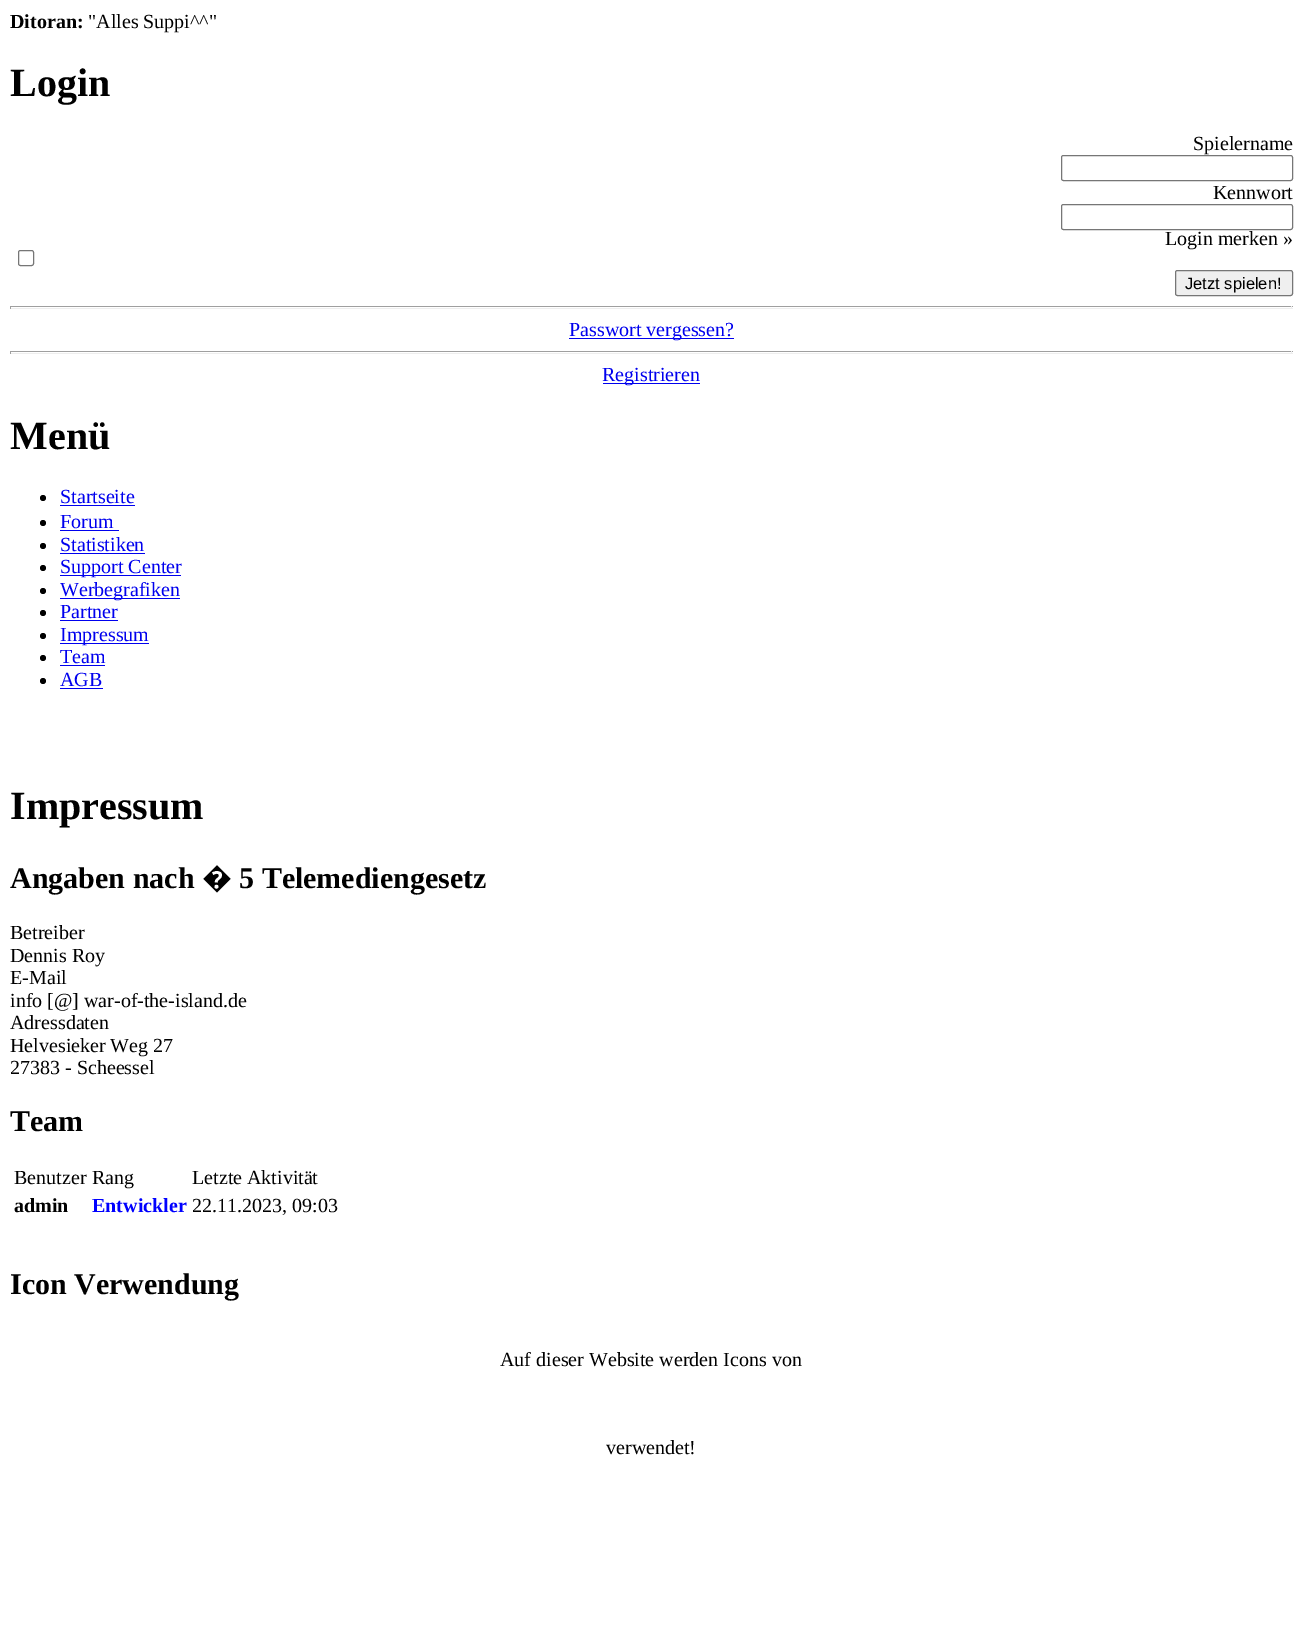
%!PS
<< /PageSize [1302 1649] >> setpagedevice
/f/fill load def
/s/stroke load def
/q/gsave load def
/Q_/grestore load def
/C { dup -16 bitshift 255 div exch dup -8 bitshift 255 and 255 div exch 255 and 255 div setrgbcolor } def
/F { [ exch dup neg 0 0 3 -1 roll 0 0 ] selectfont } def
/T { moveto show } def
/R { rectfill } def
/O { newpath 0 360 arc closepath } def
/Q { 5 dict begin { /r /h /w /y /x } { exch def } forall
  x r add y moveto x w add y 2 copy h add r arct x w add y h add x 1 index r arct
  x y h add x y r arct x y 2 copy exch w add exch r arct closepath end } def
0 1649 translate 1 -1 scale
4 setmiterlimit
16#FFFFFF C
0 0 1302 1649 R
/LiberationSerif-Bold 20 F
16#000000 C
(Ditoran:) 10 28 T
/LiberationSerif-Regular 20 F
("Alles Suppi^^") 88 28 T
/LiberationSerif-Bold 40 F
(Login) 10 96 T
/LiberationSerif-Regular 20 F
(Spielername) 1193 150 T
16#767676 C
1061.5 155.5 231 25 2 Q s
16#000000 C
(Kennwort) 1213 199 T
16#767676 C
1061.5 204.5 231 25 2 Q s
16#000000 C
(Login merken ») 1165 245 T
16#767676 C
18.5 250.5 15 15 2 Q s
16#EFEFEF C
1175.5 270.5 117 25 2 Q q f Q_
16#767676 C
s
/LiberationSans-Regular 16.5 F
16#000000 C
(Jetzt spielen!) 1185 289 T
16#9F9F9F C
10 306 1283 1 R
16#EEEEEE C
1291 306 1 3 R
10 308 1283 1 R
16#9F9F9F C
10 306 1 3 R
16#0000EE C
569 338 165 1 R
/LiberationSerif-Regular 20 F
(Passwort vergessen?) 569 336 T
16#9F9F9F C
10 351 1283 1 R
16#EEEEEE C
1291 351 1 3 R
10 353 1283 1 R
16#9F9F9F C
10 351 1 3 R
16#0000EE C
603 383 97 1 R
(Registrieren) 602 381 T
/LiberationSerif-Bold 40 F
16#000000 C
(Menü) 10 449 T
43 498 3 O f
/LiberationSerif-Regular 20 F
16#0000EE C
(Startseite) 60 503 T
60 505 75 1 R
16#000000 C
43 523 3 O f
16#0000EE C
(Forum) 60 528 T
60 530 59 1 R
16#000000 C
43 546 3 O f
16#0000EE C
(Statistiken) 60 551 T
60 553 85 1 R
16#000000 C
43 568 3 O f
16#0000EE C
60 575 121 1 R
(Support Center) 60 573 T
16#000000 C
43 591 3 O f
16#0000EE C
60 598 120 1 R
(Werbegrafiken) 60 596 T
16#000000 C
43 613 3 O f
16#0000EE C
(Partner) 60 618 T
60 620 58 1 R
16#000000 C
43 636 3 O f
16#0000EE C
60 643 89 1 R
(Impressum) 60 641 T
16#000000 C
43 658 3 O f
16#0000EE C
(Team) 60 663 T
60 665 45 1 R
16#000000 C
43 681 3 O f
16#0000EE C
(AGB) 60 686 T
60 688 43 1 R
/LiberationSerif-Bold 40 F
16#000000 C
(Impressum) 10 819 T
/LiberationSerif-Bold 30 F
(Angaben nach) 10 888 T
/NotoSans-Bold 30 F
(�) 202 888 T
/LiberationSerif-Bold 30 F
(5 Telemediengesetz) 239 888 T
/LiberationSerif-Regular 20 F
(Betreiber) 10 939 T
(Dennis Roy) 10 962 T
(E-Mail) 10 984 T
(info [@] war-of-the-island.de) 10 1007 T
(Adressdaten) 10 1029 T
(Helvesieker Weg 27) 10 1052 T
(27383 - Scheessel) 10 1074 T
/LiberationSerif-Bold 30 F
(Team) 10 1131 T
/LiberationSerif-Regular 20 F
(Benutzer) 14 1184 T
(Rang) 92 1184 T
(Letzte Aktivität) 192 1184 T
/LiberationSerif-Bold 20 F
(admin) 14 1212 T
16#0000FF C
(Entwickler) 92 1212 T
/LiberationSerif-Regular 20 F
16#000000 C
(22.11.2023, 09:03) 192 1212 T
/LiberationSerif-Bold 30 F
(Icon Verwendung) 10 1294 T
/LiberationSerif-Regular 20 F
(Auf dieser Website werden Icons von) 500 1366 T
(verwendet!) 606 1454 T
showpage
